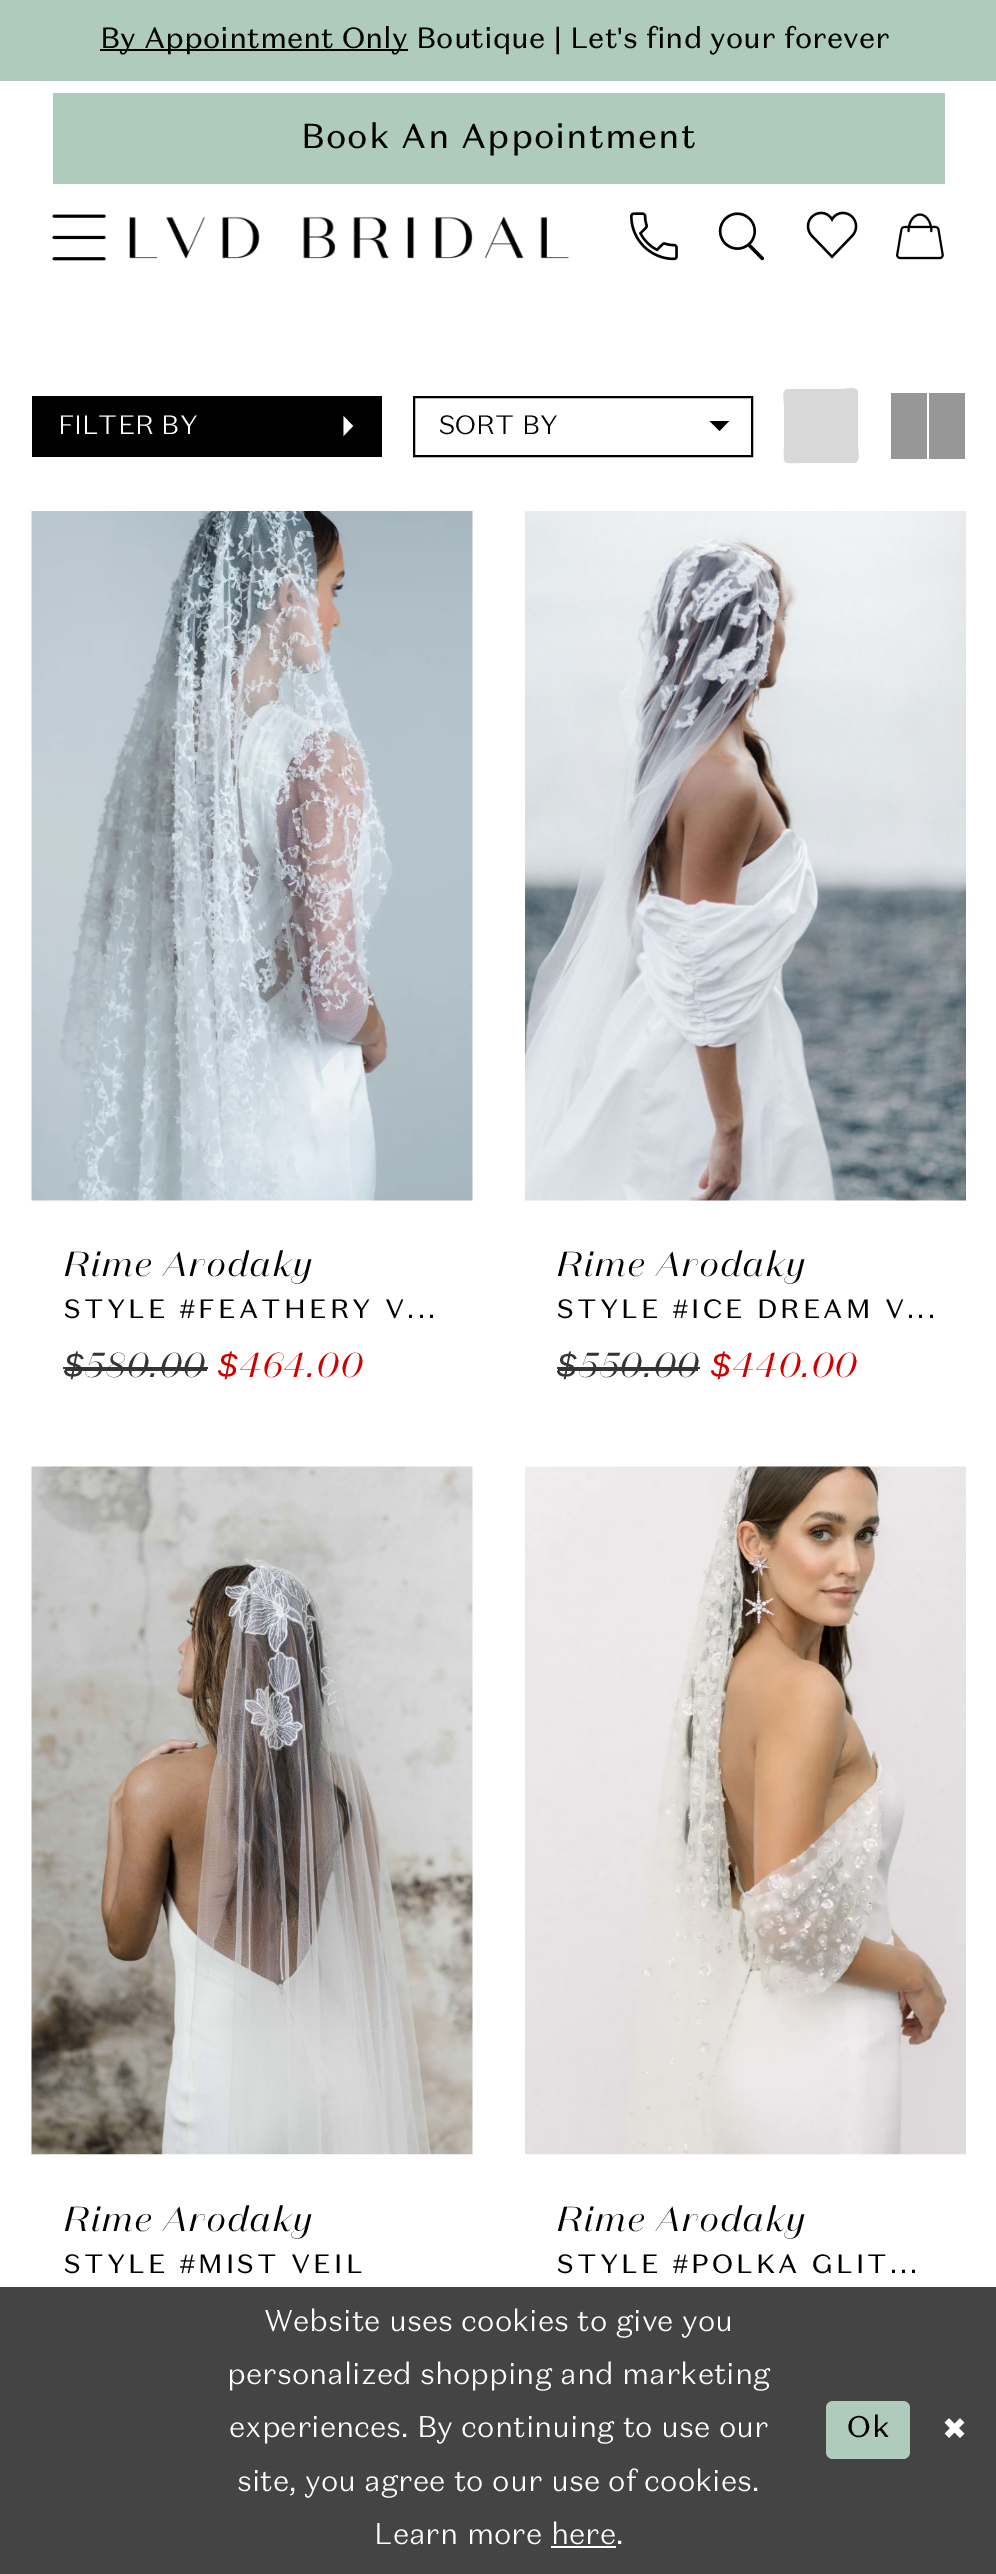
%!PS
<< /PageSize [996 2574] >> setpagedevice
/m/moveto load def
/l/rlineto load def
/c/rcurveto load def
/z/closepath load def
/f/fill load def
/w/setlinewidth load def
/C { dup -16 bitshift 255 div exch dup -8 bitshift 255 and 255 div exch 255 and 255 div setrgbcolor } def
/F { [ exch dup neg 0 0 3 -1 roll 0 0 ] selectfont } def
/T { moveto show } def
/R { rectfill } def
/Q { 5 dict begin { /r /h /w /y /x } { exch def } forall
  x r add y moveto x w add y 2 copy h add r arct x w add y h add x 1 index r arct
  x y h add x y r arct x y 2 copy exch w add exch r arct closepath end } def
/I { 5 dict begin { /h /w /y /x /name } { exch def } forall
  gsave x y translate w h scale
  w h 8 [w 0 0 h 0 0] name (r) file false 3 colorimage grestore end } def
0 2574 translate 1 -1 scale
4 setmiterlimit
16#FFFFFF C
0 0 996 2574 R
16#AECBBC C
0 0 996 81 R
16#000000 C
100 49 308 2 R
/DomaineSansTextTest-Regular 29.25 F
(By Appointment Only) 100 48 T
(Boutique) 416 48 T
/LiberationSans-Regular 29.25 F
(|) 554 48 T
/DomaineSansTextTest-Regular 29.25 F
(Let) 570 48 T
/LiberationSans-Regular 29.25 F
(') 617 48 T
/DomaineSansTextTest-Regular 29.25 F
(s find your forever) 623 48 T
16#AFCBBC C
53 93 892 91 R
/DomaineSansTextTest-Regular 34.5 F
16#000000 C
301 148 m 1.1 0 (Book An Appointment) ashow
(1.rgb) 52 214 54 47 I
(2.rgb) 129 216 440 43 I
(3.rgb) 630 212 48 49 I
(4.rgb) 718 212 47 49 I
(5.rgb) 806 211 52 48 I
(6.rgb) 896 213 48 47 I
32 396 350 61 R
/DomaineSansTextTest-Light 26.5 F
16#FFFFFF C
(FILTER BY) 58 434 T
343.5 416 m 9.5 10 l -9.5 10 l z f
16#000000 C
2 w
414 397 338 59 rectstroke
(SORT BY) 439 434 T
709.5 421 m 10 10 l 9.5 -10 l z f
16#D8D8D8 C
788 389 m 55 0 l 2 0 13 -3 15 2 c 0 57 l 0 2 3 15 -4 15 c -55 0 l -17 0 -15 2 -15 -15 c 0 -44 l 0 -2 -3 -15 4 -15 c z f
16#979797 C
891 393 m 36 0 l 0 66 l -36 0 l z 929 393 m 36 0 l 0 66 l -36 0 l z f
(7.rgb) 31 511 442 690 I
/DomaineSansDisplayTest-Italic 34.5 F
16#000000 C
64 1276 m 2.25 0 (Rime Arodaky) ashow
/DomaineSansTextTest-Regular 26.5 F
64 1318 m 3.25 0 (STYLE) ashow
/LiberationSans-Regular 26.5 F
180 1318 m 3.25 0 (#) ashow
/DomaineSansTextTest-Regular 26.5 F
198 1318 m 3.25 0 (FEATHERY V...) ashow
/LiberationSans-Italic 34.5 F
16#343434 C
64 1377 m 2.25 0 ($) ashow
63 1367 145 2 R
/DomaineSansDisplayTest-Italic 34.5 F
85 1377 m 2.25 0 (580.00) ashow
65 1369 142 2 R
/LiberationSans-Italic 34.5 F
16#D00000 C
218 1377 m 2.25 0 ($) ashow
/DomaineSansDisplayTest-Italic 34.5 F
240 1377 m 2.25 0 (464.00) ashow
(8.rgb) 525 511 441 690 I
16#000000 C
557 1276 m 2.25 0 (Rime Arodaky) ashow
/DomaineSansTextTest-Regular 26.5 F
557 1318 m 3.25 0 (STYLE) ashow
/LiberationSans-Regular 26.5 F
673 1318 m 3.25 0 (#) ashow
/DomaineSansTextTest-Regular 26.5 F
691 1318 m 3.25 0 (ICE DREAM V...) ashow
/LiberationSans-Italic 34.5 F
16#343434 C
557 1377 m 2.25 0 ($) ashow
557 1367 143 2 R
/DomaineSansDisplayTest-Italic 34.5 F
579 1377 m 2.25 0 (550.00) ashow
558 1369 140 2 R
/LiberationSans-Italic 34.5 F
16#D00000 C
711 1377 m 2.25 0 ($) ashow
/DomaineSansDisplayTest-Italic 34.5 F
733 1377 m 2.25 0 (440.00) ashow
(9.rgb) 31 1466 442 689 I
16#000000 C
64 2231 m 2.25 0 (Rime Arodaky) ashow
/DomaineSansTextTest-Regular 26.5 F
64 2273 m 3.25 0 (STYLE) ashow
/LiberationSans-Regular 26.5 F
180 2273 m 3.25 0 (#) ashow
/DomaineSansTextTest-Regular 26.5 F
198 2273 m 3.25 0 (MIST VEIL) ashow
(10.rgb) 525 1466 441 689 I
/DomaineSansDisplayTest-Italic 34.5 F
557 2231 m 2.25 0 (Rime Arodaky) ashow
/DomaineSansTextTest-Regular 26.5 F
557 2273 m 3.25 0 (STYLE) ashow
/LiberationSans-Regular 26.5 F
673 2273 m 3.25 0 (#) ashow
/DomaineSansTextTest-Regular 26.5 F
691 2273 m 3.25 0 (POLKA GLIT...) ashow
16#444444 C
0 2287 996 287 R
/DomaineSansTextTest-Light 29.9 F
16#FFFFFF C
(Website uses cookies to give you) 264 2331 T
(personalized shopping and marketing) 227 2384 T
(experiences. By continuing to use our) 229 2437 T
(site, you agree to our use of cookies.) 237 2491 T
(Learn more here.) 374 2544 T
551 2546 65 2 R
16#AFCBBC C
826 2401 84 58 7 Q f
/DomaineSansTextTest-Regular 29.9 F
16#000000 C
847 2437 m 1 0 (Ok) ashow
/DejaVuSans-Regular 29.9 F
16#FFFFFF C
942 2439 m 1 0 (✖) ashow
showpage
